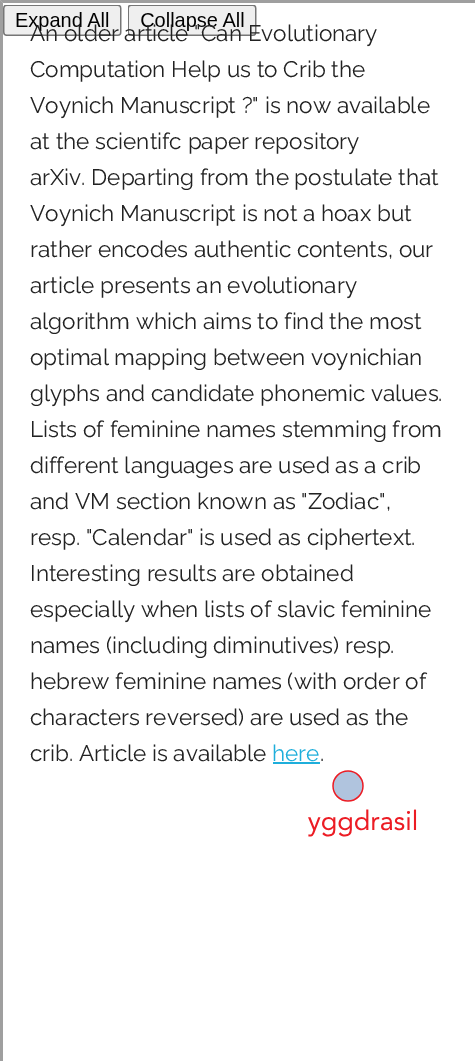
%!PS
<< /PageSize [475 1061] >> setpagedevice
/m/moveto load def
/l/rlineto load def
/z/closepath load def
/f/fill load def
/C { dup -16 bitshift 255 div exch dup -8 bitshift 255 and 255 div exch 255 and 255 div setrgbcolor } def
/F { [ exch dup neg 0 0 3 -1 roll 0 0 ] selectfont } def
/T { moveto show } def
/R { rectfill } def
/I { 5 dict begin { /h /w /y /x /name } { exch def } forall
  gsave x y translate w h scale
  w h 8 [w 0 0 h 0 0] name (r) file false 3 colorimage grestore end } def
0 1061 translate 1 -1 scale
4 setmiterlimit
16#FFFFFF C
0 0 475 1061 R
16#9F9F9F C
0 0 m 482 0 l -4 3 l -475 0 l z f
0 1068 m 0 -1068 l 3 3 l 0 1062 l z f
(1.rgb) 3 5 414 832 I
/Raleway-Regular 22.5 F
16#222222 C
(An older article "Can Evolutionary) 30 41 T
(Computation Help us to Crib the) 30 77 T
(Voynich Manuscript ?" is now available) 30 113 T
(at the scientifc paper repository) 30 149 T
(arXiv. Departing from the postulate that) 30 185 T
(Voynich Manuscript is not a hoax but) 30 221 T
(rather encodes authentic contents, our) 30 257 T
(article presents an evolutionary) 30 293 T
(algorithm which aims to find the most) 30 329 T
(optimal mapping between voynichian) 30 365 T
(glyphs and candidate phonemic values.) 30 401 T
(Lists of feminine names stemming from) 30 437 T
(different languages are used as a crib) 30 473 T
(and VM section known as "Zodiac",) 30 509 T
(resp. "Calendar" is used as ciphertext.) 30 545 T
(Interesting results are obtained) 30 581 T
(especially when lists of slavic feminine) 30 617 T
(names \(including diminutives\) resp.) 30 653 T
(hebrew feminine names \(with order of) 30 689 T
(characters reversed\) are used as the) 30 725 T
(crib. Article is available) 30 761 T
16#1EAEDB C
(here) 272 761 T
273 762 47 2 R
16#222222 C
(.) 320 761 T
showpage
